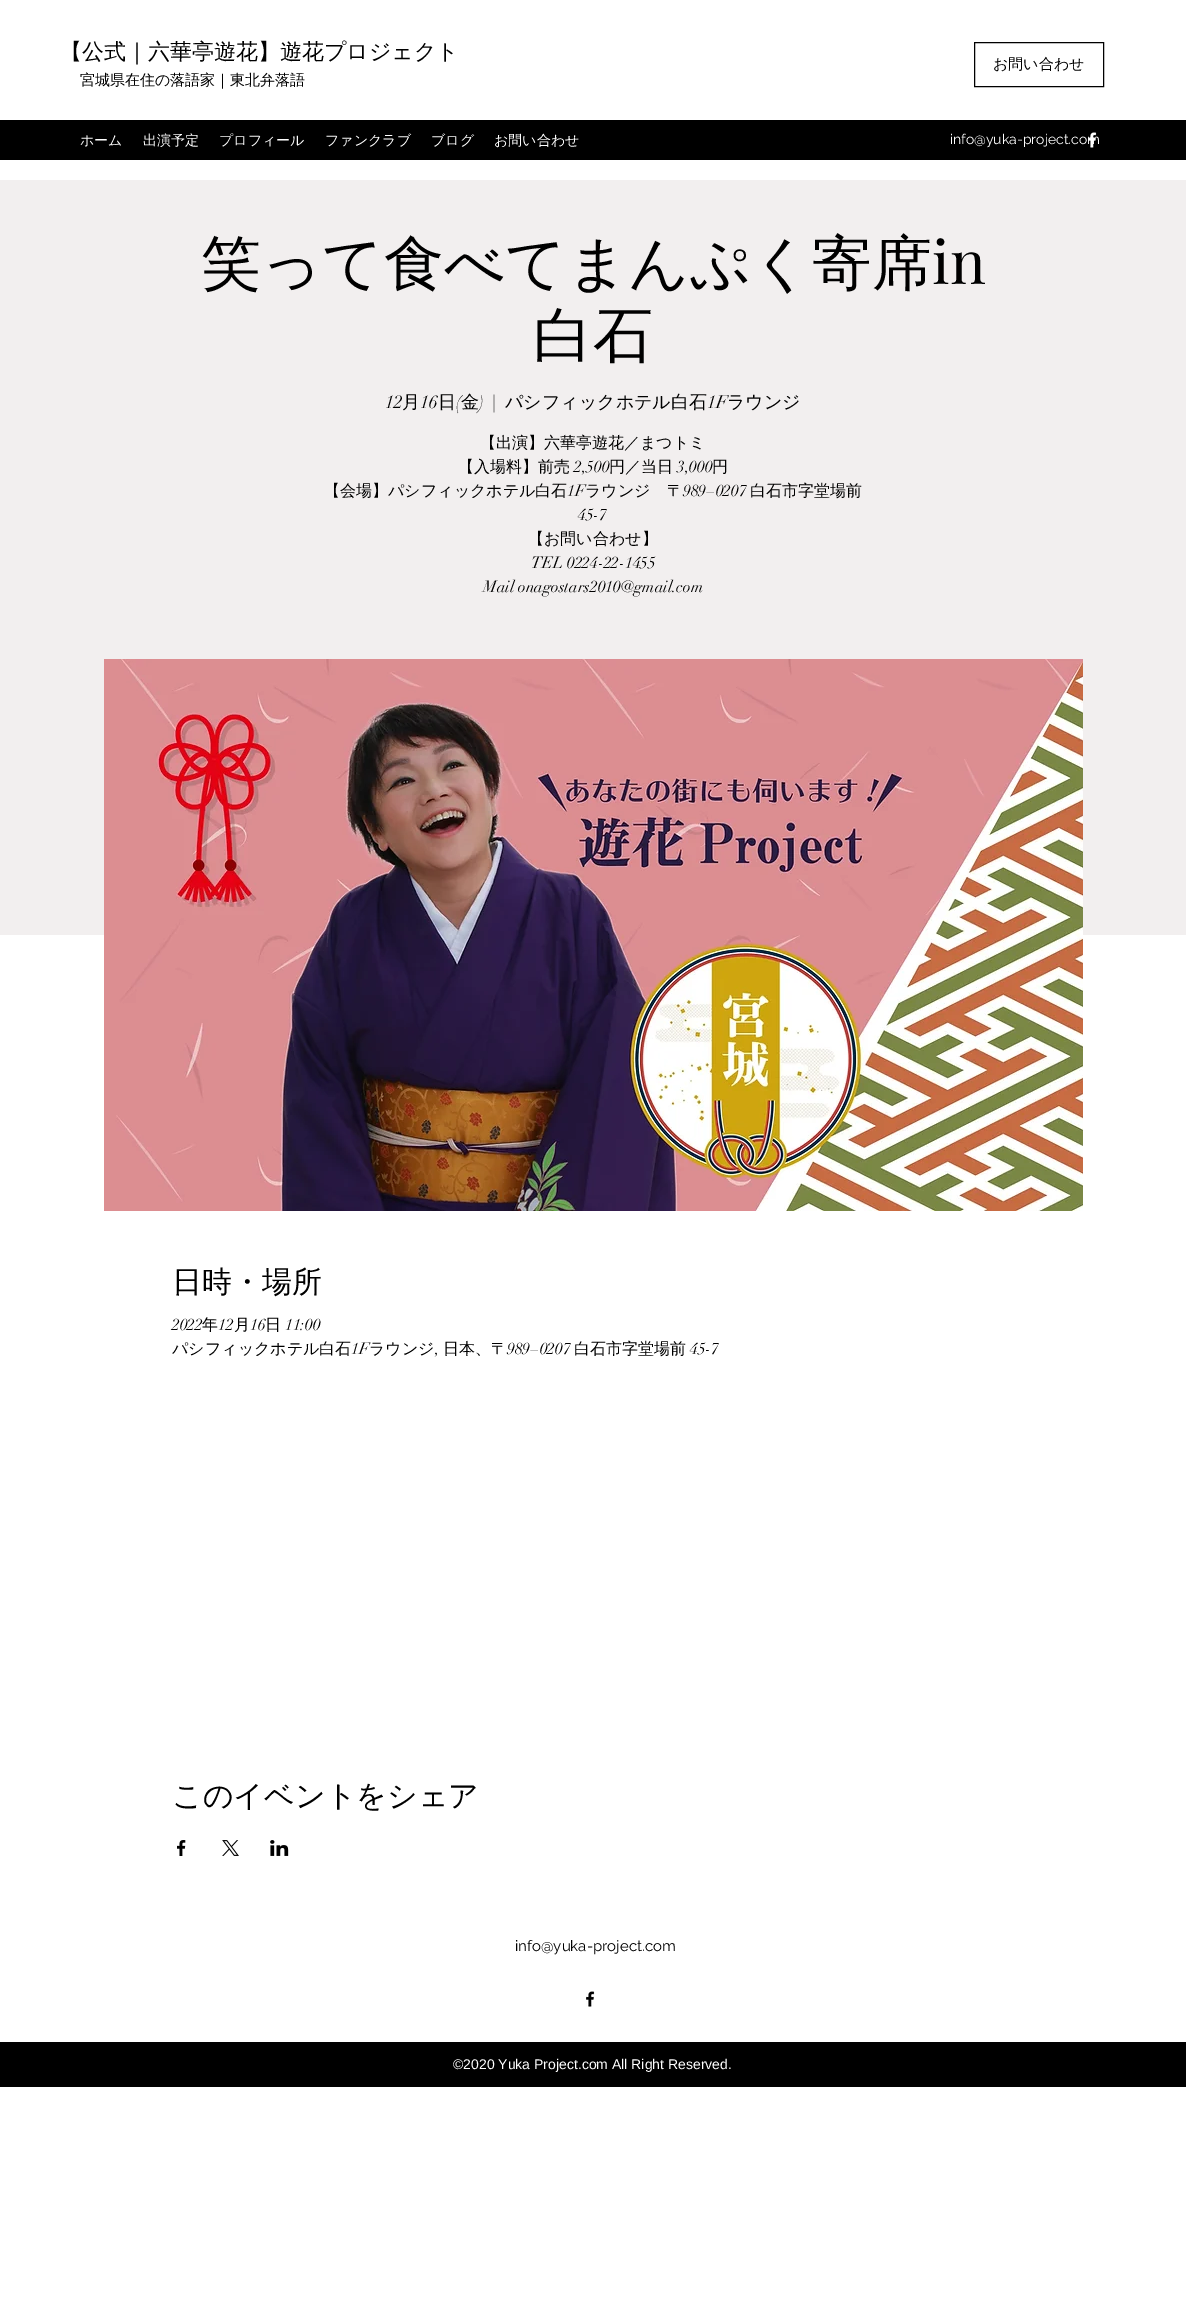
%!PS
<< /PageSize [1186 2313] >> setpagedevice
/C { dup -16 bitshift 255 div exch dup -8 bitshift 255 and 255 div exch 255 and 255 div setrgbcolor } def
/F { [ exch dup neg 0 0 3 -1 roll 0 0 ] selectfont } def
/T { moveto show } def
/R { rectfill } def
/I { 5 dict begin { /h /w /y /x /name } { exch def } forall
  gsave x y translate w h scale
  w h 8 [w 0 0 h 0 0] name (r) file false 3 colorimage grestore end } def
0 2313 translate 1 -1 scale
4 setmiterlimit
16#FFFFFF C
0 0 1186 2313 R
/WenQuanYiZenHei-Medium 22 F
16#000000 C
(【公式｜六華亭遊花】遊花プロジェクト) 60 59 T
/WenQuanYiZenHei-Medium 15 F
(宮城県在住の落語家｜東北弁落語) 80 85 T
974.5 42.5 129 44 rectstroke
(お問い合わせ) 993 69 T
0 120 1186 40 R
/WenQuanYiZenHei-Medium 14 F
16#FFFFFF C
(ホーム) 80 145 T
(出演予定) 143 145 T
(プロフィール) 219 145 T
(ファンクラブ) 325 145 T
(ブログ) 431 145 T
(お問い合わせ) 494 145 T
/Raleway-Regular 14 F
(info@yuka-project.com) 950 144 T
(1.rgb) 1088 132 9 16 I
16#F2EFEF C
0 180 1186 755 R
/WenQuanYiZenHei-Medium 60 F
16#000000 C
(笑って食べてまんぷく寄席) 201 284 T
/PlayfairDisplay-Regular 60 F
(in) 932 284 T
/WenQuanYiZenHei-Medium 60 F
(白石) 533 356 T
/didot-Regular 18 F
(12) 385 408 T
/WenQuanYiZenHei-Medium 18 F
(月) 402 408 T
/didot-Regular 18 F
(16) 420 408 T
/WenQuanYiZenHei-Medium 18 F
(日) 438 408 T
/didot-Regular 18 F
(\() 456 408 T
/WenQuanYiZenHei-Medium 18 F
(金) 461 408 T
/didot-Regular 18 F
(\)) 479 408 T
(|) 492 408 T
/WenQuanYiZenHei-Medium 18 F
(パシフィックホテル白石) 505 408 T
/didot-Regular 18 F
(1F) 707 408 T
/WenQuanYiZenHei-Medium 18 F
(ラウンジ) 727 408 T
/WenQuanYiZenHei-Medium 16 F
(【出演】六華亭遊花／まつトミ) 480 448 T
(【入場料】前売) 458 472 T
/didot-Regular 16 F
(2,500) 574 472 T
/WenQuanYiZenHei-Medium 16 F
(円／当日) 609 472 T
/didot-Regular 16 F
(3,000) 677 472 T
/WenQuanYiZenHei-Medium 16 F
(円) 712 472 T
(【会場】パシフィックホテル白石) 324 496 T
/didot-Regular 16 F
(1F) 567 496 T
/WenQuanYiZenHei-Medium 16 F
(ラウンジ　〒) 585 496 T
/didot-Regular 16 F
(989−0207) 683 496 T
/WenQuanYiZenHei-Medium 16 F
(白石市字堂場前) 750 496 T
/didot-Regular 16 F
(45-7) 578 520 T
/WenQuanYiZenHei-Medium 16 F
(【お問い合わせ】) 528 544 T
/didot-Regular 16 F
(TEL 0224-22-1455) 531 568 T
(Mail onagostars2010@gmail.com) 483 592 T
(2.rgb) 104 659 979 552 I
/WenQuanYiZenHei-Medium 30 F
(日時・場所) 172 1292 T
/didot-Regular 16 F
(2022) 172 1330 T
/WenQuanYiZenHei-Medium 16 F
(年) 202 1330 T
/didot-Regular 16 F
(12) 218 1330 T
/WenQuanYiZenHei-Medium 16 F
(月) 234 1330 T
/didot-Regular 16 F
(16) 250 1330 T
/WenQuanYiZenHei-Medium 16 F
(日) 265 1330 T
/didot-Regular 16 F
(11:00) 285 1330 T
/WenQuanYiZenHei-Medium 16 F
(パシフィックホテル白石) 172 1354 T
/didot-Regular 16 F
(1F) 351 1354 T
/WenQuanYiZenHei-Medium 16 F
(ラウンジ) 369 1354 T
/didot-Regular 16 F
(,) 435 1354 T
/WenQuanYiZenHei-Medium 16 F
(日本、〒) 443 1354 T
/didot-Regular 16 F
(989−0207) 507 1354 T
/WenQuanYiZenHei-Medium 16 F
(白石市字堂場前) 574 1354 T
/didot-Regular 16 F
(45-7) 690 1354 T
/WenQuanYiZenHei-Medium 30 F
(このイベントをシェア) 172 1806 T
(3.rgb) 177 1840 9 16 I
(4.rgb) 222 1840 17 16 I
(5.rgb) 270 1840 19 16 I
/Raleway-Regular 15 F
(info@yuka-project.com) 515 1951 T
(6.rgb) 586 1991 9 16 I
0 2042 1186 45 R
/LiberationSans-Regular 14 F
16#FFFFFF C
(©2020 Yuka Project.com All Right Reserved.) 453 2069 T
showpage
